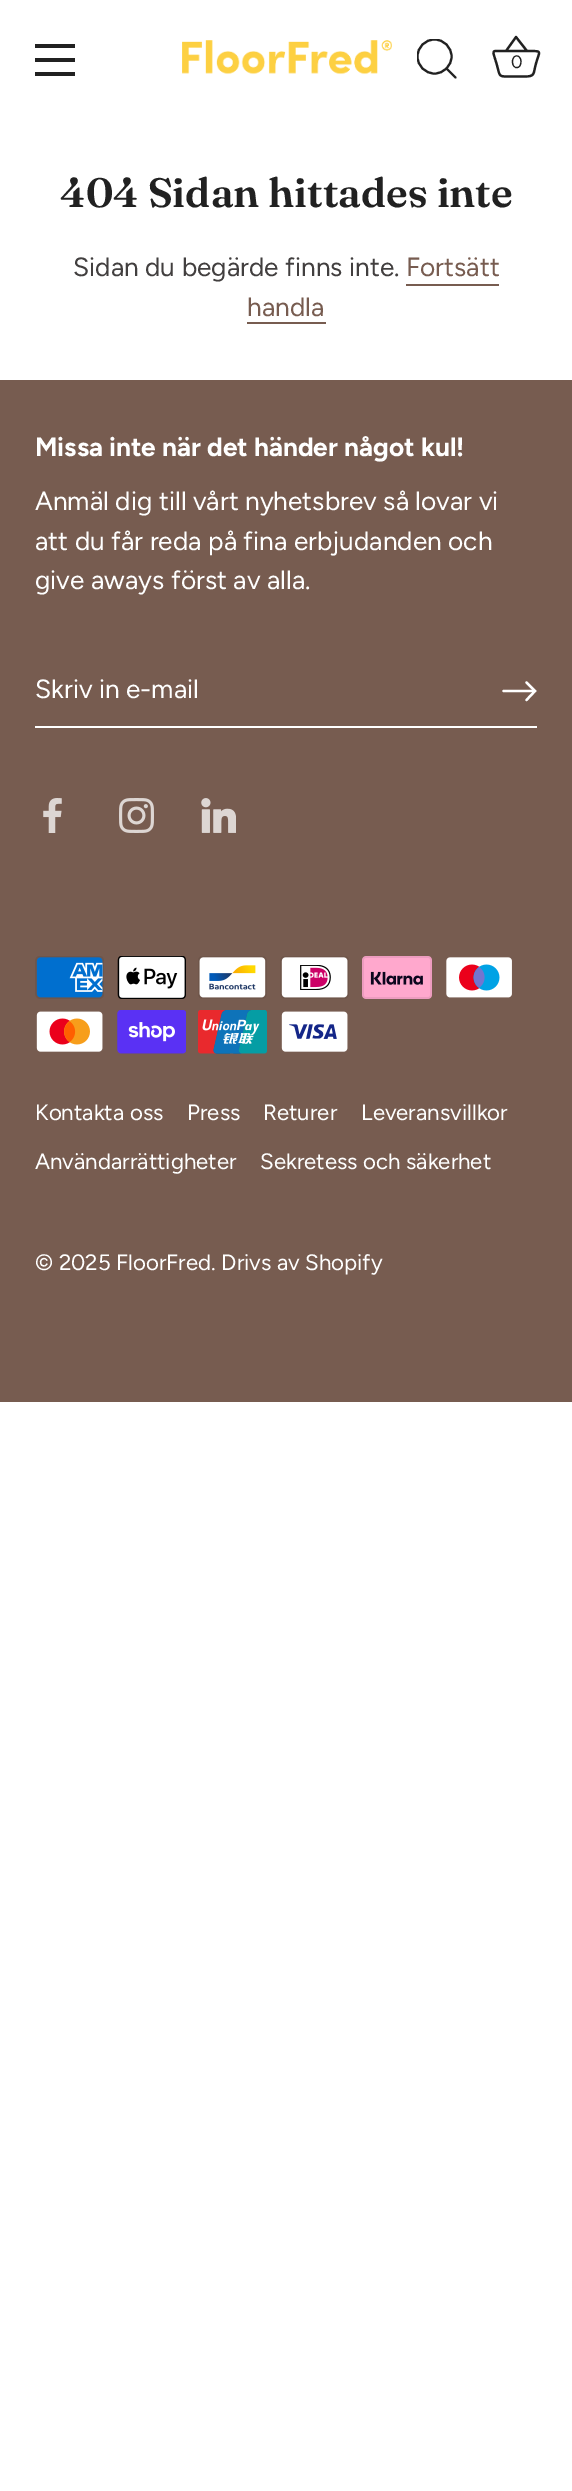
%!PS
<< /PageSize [572 2491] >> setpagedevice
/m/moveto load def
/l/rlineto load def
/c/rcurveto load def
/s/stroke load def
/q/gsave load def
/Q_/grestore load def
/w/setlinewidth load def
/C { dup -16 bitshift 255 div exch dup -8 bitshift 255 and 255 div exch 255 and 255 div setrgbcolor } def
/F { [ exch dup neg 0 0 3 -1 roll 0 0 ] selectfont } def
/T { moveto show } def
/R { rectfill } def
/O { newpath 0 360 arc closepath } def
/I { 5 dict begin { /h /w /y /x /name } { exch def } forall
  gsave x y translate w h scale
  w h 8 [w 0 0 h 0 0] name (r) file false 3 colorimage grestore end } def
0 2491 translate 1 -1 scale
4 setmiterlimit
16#FFFFFF C
0 0 572 2491 R
16#212121 C
35 44 40 4 R
35 58 40 4 R
35 72 40 4 R
(1.rgb) 182 40 210 35 I
q
417 39 42 42 rectclip
2.1 w
434.5 56.5 17 O s
Q_
2.1 w
1 setlinecap
1 setlinejoin
455.5 77.5 m -9 -9 l s
2.2 w
0 setlinecap
495.5 51 m -3.5 -.5 -1.5 4.5 -1 6 c 2 6.5 l 4 14 1 13 15.5 13 c 12.5 0 l 11 0 8.5 -2.5 11.5 -13 c 3.5 -12.5 6.5 -12.5 -6 -12.5 c -34.5 0 l 506 51 m 10 -14 l 11 14 l s
/Figtree-Regular 18 F
(0) 511 68 T
/Fraunces-SemiBold 41 F
(404 Sidan hittades inte) 60 207 T
/Figtree-Regular 26.25 F
16#423F3F C
(Sidan du begärde finns inte.) 73 276 T
16#775C50 C
(Fortsätt) 406 276 T
406 284 93 2 R
(handla) 247 316 T
247 322 79 2 R
0 380 572 1022 R
/Figtree-Bold 26.25 F
16#FFFFFF C
(Missa inte när det händer något kul!) 35 456 T
/Figtree-Regular 26.25 F
(Anmäl dig till vårt nyhetsbrev så lovar vi) 35 510 T
(att du får reda på fina erbjudanden och) 35 550 T
(give aways först av alla.) 35 589 T
35 726 502 2 R
(Skriv in e-mail) 35 698 T
2.3 w
1 setlinecap
0 setlinejoin
526.5 700 m 8.5 -9 l -8.5 -8.5 l s
1 setlinejoin
534 691 m -30.5 0 l s
(2.rgb) 43 798 19 35 I
(3.rgb) 119 798 35 35 I
(4.rgb) 201 798 35 35 I
(5.rgb) 35 956 69 43 I
(6.rgb) 117 956 69 43 I
(7.rgb) 198 956 69 43 I
(8.rgb) 280 956 69 43 I
(9.rgb) 362 956 70 43 I
(10.rgb) 446 957 66 41 I
(11.rgb) 36 1011 67 41 I
(12.rgb) 117 1010 69 44 I
(13.rgb) 198 1010 69 44 I
(14.rgb) 281 1011 67 41 I
/Figtree-Regular 22.25 F
(Kontakta oss) 35 1120 T
(Press) 187 1120 T
(Returer) 263 1120 T
(Leveransvillkor) 361 1120 T
(Användarrättigheter) 35 1169 T
(Sekretess och säkerhet) 260 1169 T
(© 2025 FloorFred. Drivs av Shopify) 35 1270 T
showpage
